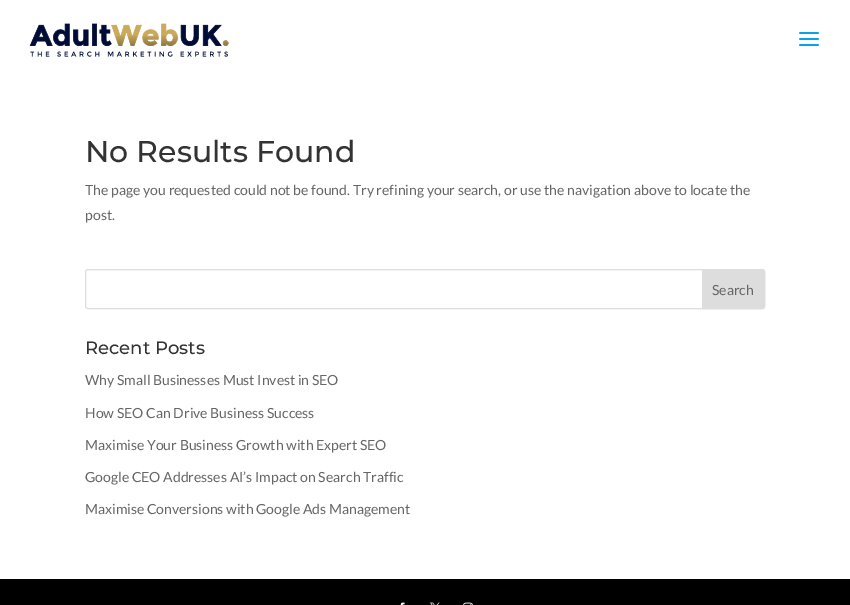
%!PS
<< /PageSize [850 605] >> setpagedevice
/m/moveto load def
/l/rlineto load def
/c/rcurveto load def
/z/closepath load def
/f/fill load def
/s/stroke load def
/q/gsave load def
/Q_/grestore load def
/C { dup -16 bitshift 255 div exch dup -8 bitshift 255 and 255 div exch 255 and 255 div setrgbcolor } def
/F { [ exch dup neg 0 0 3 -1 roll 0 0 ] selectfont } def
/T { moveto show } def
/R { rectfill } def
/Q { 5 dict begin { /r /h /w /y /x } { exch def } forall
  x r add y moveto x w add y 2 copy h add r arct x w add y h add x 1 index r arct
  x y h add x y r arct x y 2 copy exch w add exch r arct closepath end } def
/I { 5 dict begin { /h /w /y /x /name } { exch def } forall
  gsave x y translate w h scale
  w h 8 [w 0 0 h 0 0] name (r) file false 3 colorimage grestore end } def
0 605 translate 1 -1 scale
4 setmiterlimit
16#FFFFFF C
0 0 850 605 R
(1.rgb) 29 23 200 34 I
(2.rgb) 799 32 20 14 I
/Montserrat-Thin 30 F
16#333333 C
(No Results Found) 85 162 T
/Lato-Regular 14 F
16#666666 C
(The page you requested could not be found. Try refining your search, or use the navigation above to locate the) 85 195 T
(post.) 85 220 T
16#DDDDDD C
85.5 269.5 679 39 2.5 Q s
702.5 269.5 m 59.5 0 l 1.5 0 2.5 1 2.5 2.5 c 0 34 l 0 1.5 -1 2.5 -2.5 2.5 c -59.5 0 l z q f Q_
s
16#666666 C
(Search) 712 295 T
/Montserrat-Thin 18 F
16#333333 C
(Recent Posts) 85 354 T
/Lato-Regular 14 F
16#666666 C
(Why Small Businesses Must Invest in SEO) 85 385 T
(How SEO Can Drive Business Success) 85 418 T
(Maximise Your Business Growth with Expert SEO) 85 450 T
(Google CEO Addresses AI’s Impact on Search Traffic) 85 482 T
(Maximise Conversions with Google Ads Management) 85 514 T
16#000000 C
0 579 850 26 R
(3.rgb) 400 602 5 3 I
(4.rgb) 430 602 10 3 I
(5.rgb) 463 602 10 3 I
showpage
